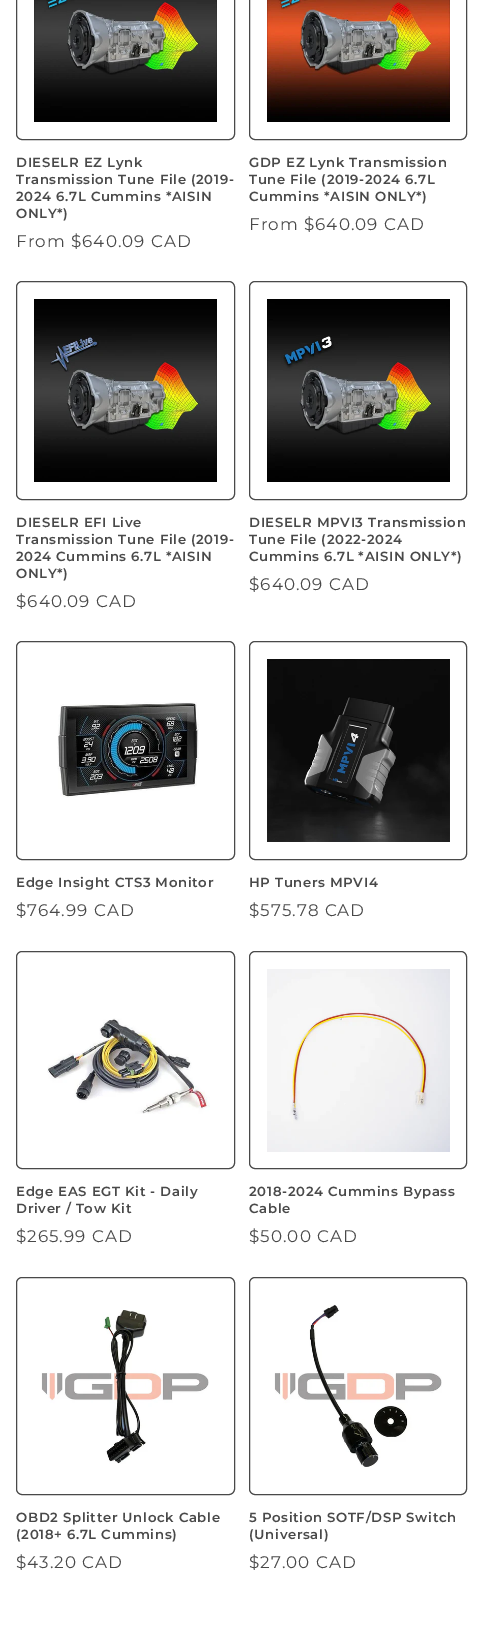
%!PS
<< /PageSize [483 1649] >> setpagedevice
/m/moveto load def
/s/stroke load def
/C { dup -16 bitshift 255 div exch dup -8 bitshift 255 and 255 div exch 255 and 255 div setrgbcolor } def
/F { [ exch dup neg 0 0 3 -1 roll 0 0 ] selectfont } def
/R { rectfill } def
/Q { 5 dict begin { /r /h /w /y /x } { exch def } forall
  x r add y moveto x w add y 2 copy h add r arct x w add y h add x 1 index r arct
  x y h add x y r arct x y 2 copy exch w add exch r arct closepath end } def
/I { 5 dict begin { /h /w /y /x /name } { exch def } forall
  gsave x y translate w h scale
  w h 8 [w 0 0 h 0 0] name (r) file false 3 colorimage grestore end } def
0 1649 translate 1 -1 scale
4 setmiterlimit
16#FFFFFF C
0 0 483 1649 R
16#494949 C
16.5 -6.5 218 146 5.5 Q s
(1.rgb) 34 0 183 122 I
/Montserrat-SemiBold 13.25 F
16 167 m .65 0 (DIESELR EZ Lynk) ashow
16 184 m .65 0 (Transmission Tune File \(2019-) ashow
16 201 m .65 0 (2024 6.7L Cummins *AISIN) ashow
16 218 m .65 0 (ONLY*\)) ashow
/Montserrat-Regular 16.75 F
16 247 m 1 0 (From $640.09 CAD) ashow
249.5 -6.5 217 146 5.5 Q s
(2.rgb) 267 0 183 122 I
/Montserrat-SemiBold 13.25 F
249 167 m .65 0 (GDP EZ Lynk Transmission) ashow
249 184 m .65 0 (Tune File \(2019-2024 6.7L) ashow
249 201 m .65 0 (Cummins *AISIN ONLY*\)) ashow
/Montserrat-Regular 16.75 F
249 230 m 1 0 (From $640.09 CAD) ashow
16.5 281.5 218 218 5.5 Q s
(3.rgb) 34 299 183 183 I
/Montserrat-SemiBold 13.25 F
16 527 m .65 0 (DIESELR EFI Live) ashow
16 544 m .65 0 (Transmission Tune File \(2019-) ashow
16 561 m .65 0 (2024 Cummins 6.7L *AISIN) ashow
16 578 m .65 0 (ONLY*\)) ashow
/Montserrat-Regular 16.75 F
16 607 m 1 0 ($640.09 CAD) ashow
249.5 281.5 217 218 5.5 Q s
(4.rgb) 267 299 183 183 I
/Montserrat-SemiBold 13.25 F
249 527 m .65 0 (DIESELR MPVI3 Transmission) ashow
249 544 m .65 0 (Tune File \(2022-2024) ashow
249 561 m .65 0 (Cummins 6.7L *AISIN ONLY*\)) ashow
/Montserrat-Regular 16.75 F
249 590 m 1 0 ($640.09 CAD) ashow
16.5 641.5 218 218 5.5 Q s
(5.rgb) 57 702 142 96 I
/Montserrat-SemiBold 13.25 F
16 887 m .65 0 (Edge Insight CTS3 Monitor) ashow
/Montserrat-Regular 16.75 F
16 916 m 1 0 ($764.99 CAD) ashow
249.5 641.5 217 218 5.5 Q s
(6.rgb) 267 659 183 183 I
/Montserrat-SemiBold 13.25 F
249 887 m .65 0 (HP Tuners MPVI4) ashow
/Montserrat-Regular 16.75 F
249 916 m 1 0 ($575.78 CAD) ashow
16.5 951.5 218 217 5.5 Q s
(7.rgb) 47 1018 163 96 I
/Montserrat-SemiBold 13.25 F
16 1196 m .65 0 (Edge EAS EGT Kit - Daily) ashow
16 1213 m .65 0 (Driver / Tow Kit) ashow
/Montserrat-Regular 16.75 F
16 1242 m 1 0 ($265.99 CAD) ashow
249.5 951.5 217 217 5.5 Q s
(8.rgb) 267 969 183 183 I
/Montserrat-SemiBold 13.25 F
249 1196 m .65 0 (2018-2024 Cummins Bypass) ashow
249 1213 m .65 0 (Cable) ashow
/Montserrat-Regular 16.75 F
249 1242 m 1 0 ($50.00 CAD) ashow
16.5 1277.5 218 217 5.5 Q s
(9.rgb) 41 1310 168 154 I
/Montserrat-SemiBold 13.25 F
16 1522 m .65 0 (OBD2 Splitter Unlock Cable) ashow
16 1539 m .65 0 (\(2018+ 6.7L Cummins\)) ashow
/Montserrat-Regular 16.75 F
16 1568 m 1 0 ($43.20 CAD) ashow
249.5 1277.5 217 217 5.5 Q s
(10.rgb) 274 1304 168 163 I
/Montserrat-SemiBold 13.25 F
249 1522 m .65 0 (5 Position SOTF/DSP Switch) ashow
249 1539 m .65 0 (\(Universal\)) ashow
/Montserrat-Regular 16.75 F
249 1568 m 1 0 ($27.00 CAD) ashow
showpage
